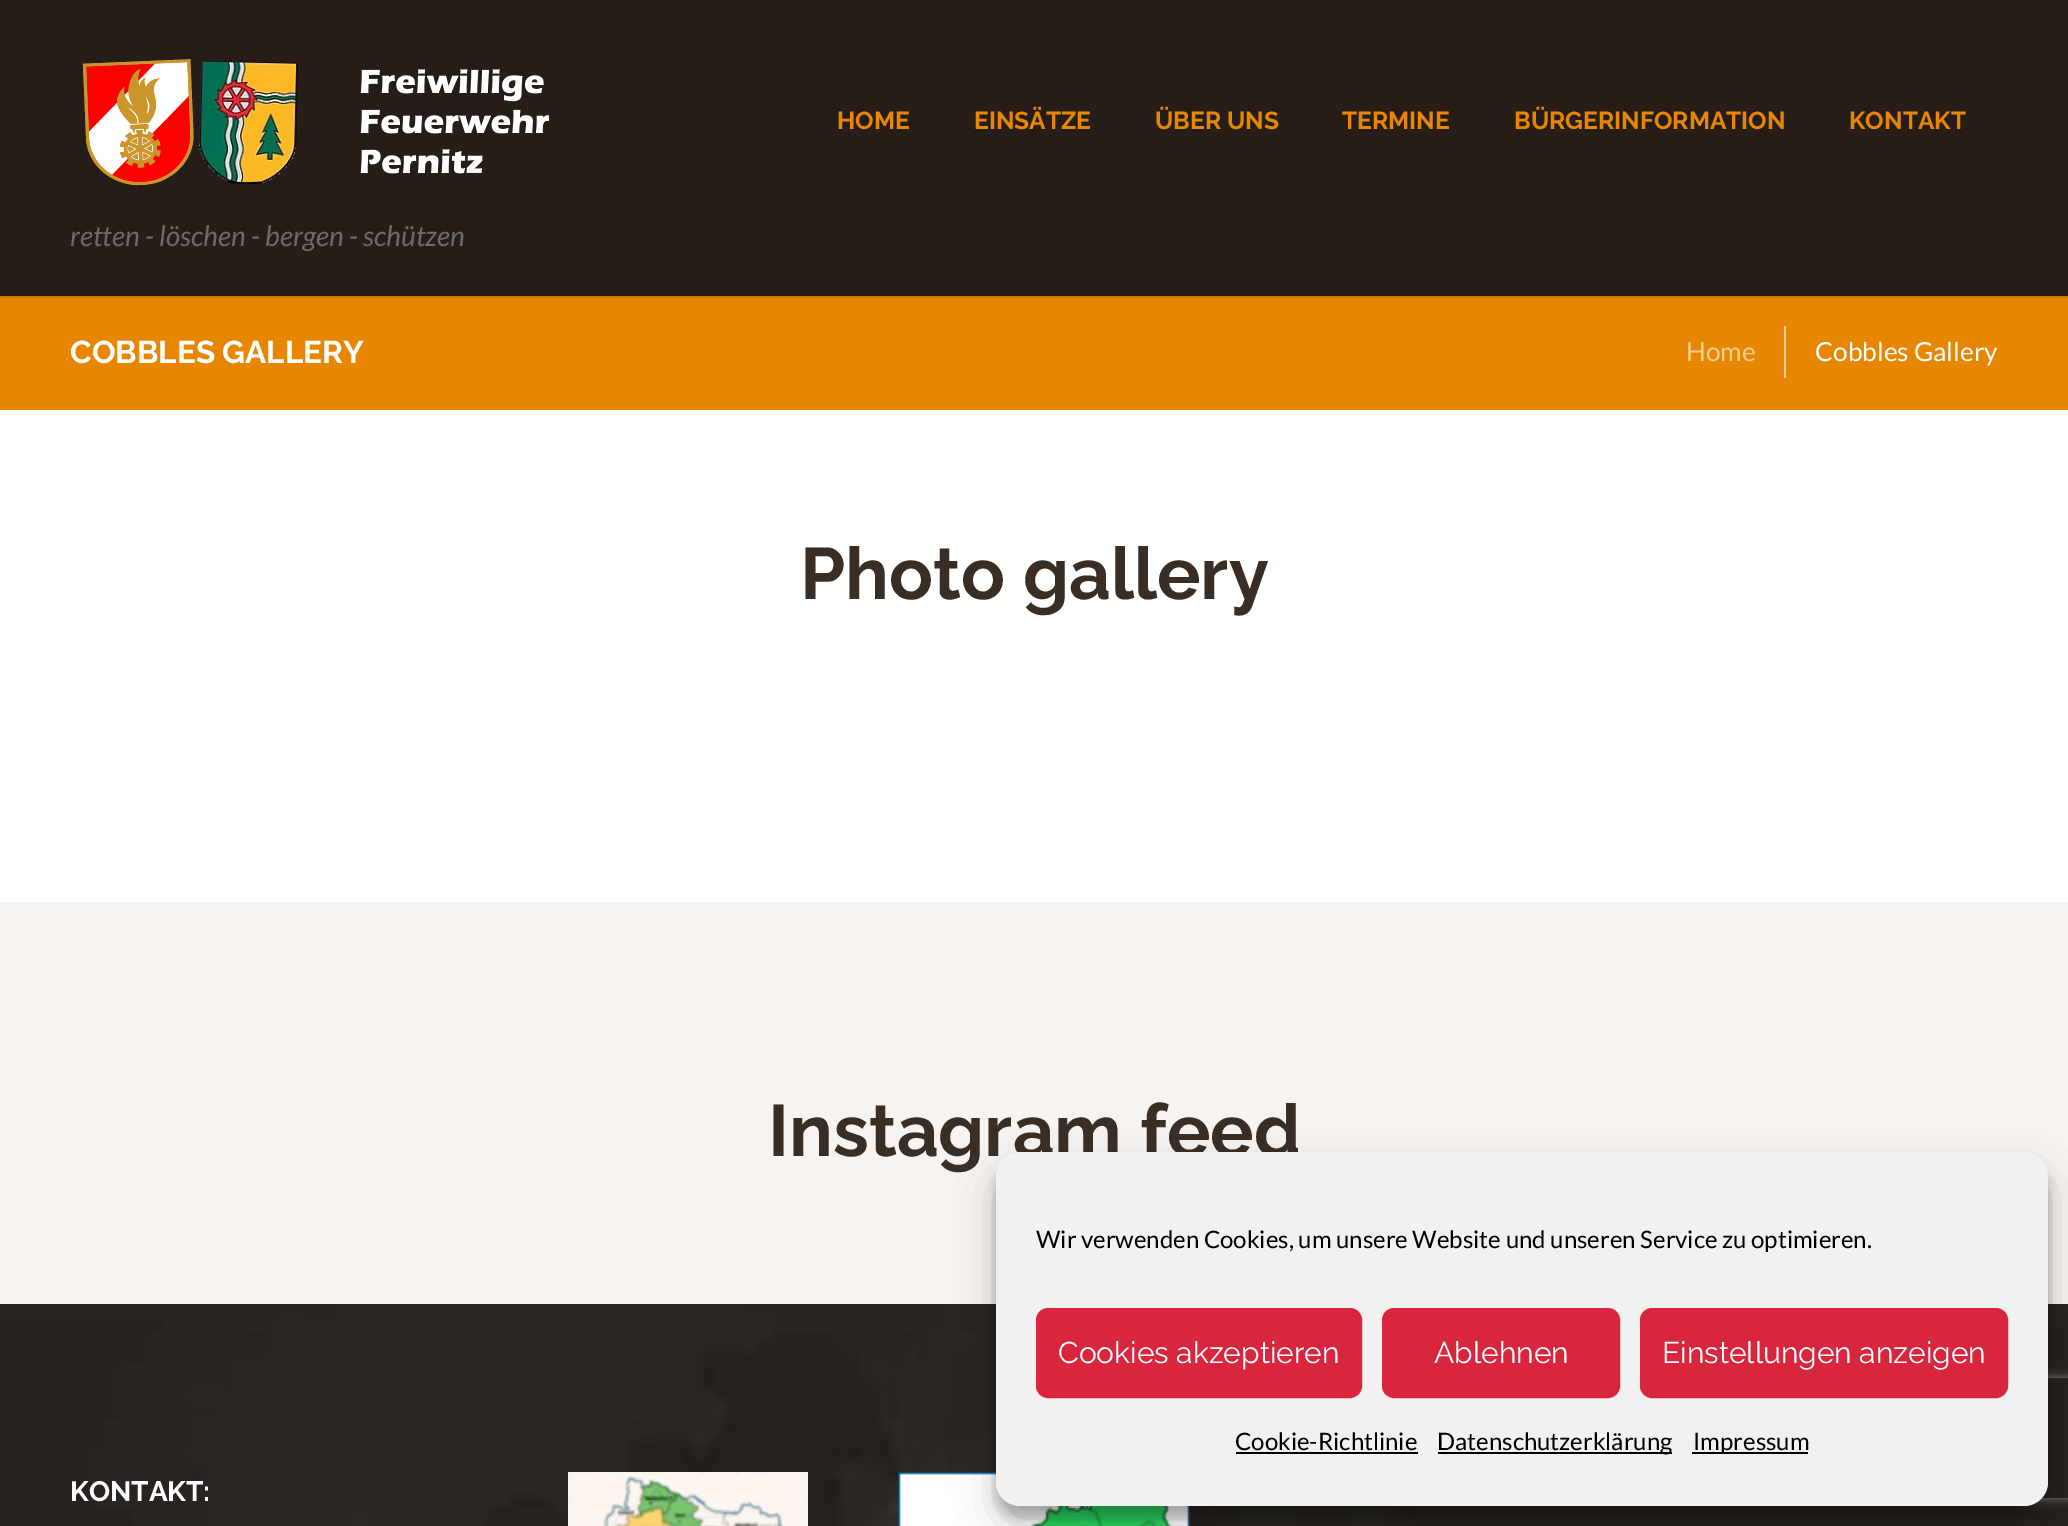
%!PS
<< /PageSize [2068 1526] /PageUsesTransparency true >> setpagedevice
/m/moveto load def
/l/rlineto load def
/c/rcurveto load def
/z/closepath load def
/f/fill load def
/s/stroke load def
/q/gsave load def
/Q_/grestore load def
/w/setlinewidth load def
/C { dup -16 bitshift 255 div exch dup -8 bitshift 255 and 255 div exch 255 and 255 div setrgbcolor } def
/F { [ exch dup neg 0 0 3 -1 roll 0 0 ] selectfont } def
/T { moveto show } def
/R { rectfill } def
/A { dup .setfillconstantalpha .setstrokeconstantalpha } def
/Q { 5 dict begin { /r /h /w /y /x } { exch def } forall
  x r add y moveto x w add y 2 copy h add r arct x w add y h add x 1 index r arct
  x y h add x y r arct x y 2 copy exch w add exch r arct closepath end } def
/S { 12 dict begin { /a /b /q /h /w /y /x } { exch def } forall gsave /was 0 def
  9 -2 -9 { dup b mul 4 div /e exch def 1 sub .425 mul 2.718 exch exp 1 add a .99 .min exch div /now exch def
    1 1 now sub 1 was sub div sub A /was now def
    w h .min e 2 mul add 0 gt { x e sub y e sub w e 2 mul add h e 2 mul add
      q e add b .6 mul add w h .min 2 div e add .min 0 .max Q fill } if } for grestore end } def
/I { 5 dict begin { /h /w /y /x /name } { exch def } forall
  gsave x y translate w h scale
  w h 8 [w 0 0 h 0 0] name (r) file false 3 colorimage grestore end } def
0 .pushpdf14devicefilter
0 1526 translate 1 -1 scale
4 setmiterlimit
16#FFFFFF C
0 0 2068 1526 R
16#261C18 C
0 0 2068 296 R
/Raleway-Thin 24.5 F
16#E78600 C
(HOME) 837 129 T
(EINSÄTZE) 974 129 T
(ÜBER UNS) 1155 129 T
(TERMINE) 1342 129 T
(BÜRGERINFORMATION) 1514 129 T
(KONTAKT) 1849 129 T
(1.rgb) 82 59 468 127 I
/Lato-Italic 28 F
16#6E6A67 C
(retten - löschen - bergen - schützen) 70 246 T
16#E78600 C
0 298 2068 112 R
16#D07900 C
0 296 2068 2 R
/Raleway-Thin 31.5 F
16#FFFFFF C
(COBBLES GALLERY) 70 363 T
/Lato-Regular 26.25 F
16#F5CF99 C
(Home) 1686 361 T
1784 326 2 52 R
16#FFFFFF C
(Cobbles Gallery) 1815 361 T
/Raleway-Thin 72.75 F
16#382E26 C
(Photo gallery) 800 599 T
16#F6F3F1 C
0 902 2068 402 R
16#382E26 C
(Instagram feed) 768 1156 T
(2.rgb) 0 1304 2068 222 I
/Raleway-Thin 28 F
16#FFFFFF C
(KONTAKT:) 70 1501 T
(3.rgb) 568 1472 240 54 I
(4.rgb) 898 1472 292 54 I
16#000000 C
996 1164 1052 354 24 6 .23 S
996 1172 1052 354 24 20 .19 S
q
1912 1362 m 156 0 l 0 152 l -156 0 l z 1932 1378 m 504 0 l 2 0 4 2 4 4 c 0 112 l 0 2 -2 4 -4 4 c -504 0 l -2 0 -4 -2 -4 -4 c 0 -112 l 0 -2 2 -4 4 -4 c z eoclip newpath
16#808080 C
1928 1378 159 120 4 5 1 S
Q_
16#F1F1F1 C
996 1152 1052 354 24 Q f
/Lato-Regular 24 F
16#000000 C
(Wir verwenden Cookies, um unsere Website und unseren Service zu optimieren.) 1036 1248 T
16#D7263D C
1037 1309 324 88 11 Q q f Q_
2 w
s
/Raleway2-Thin 30 F
16#FFFFFF C
(Cookies akzeptieren) 1058 1363 T
16#D7263D C
1383 1309 236 88 11 Q q f Q_
s
16#FFFFFF C
(Ablehnen) 1434 1363 T
16#D7263D C
1641 1309 366 88 11 Q q f Q_
s
16#FFFFFF C
(Einstellungen anzeigen) 1662 1363 T
/Lato-Regular 24 F
16#000000 C
(Cookie-Richtlinie) 1235 1450 T
1236 1452 182 2 R
1438 1452 234 2 R
(Datenschutzerklärung) 1437 1450 T
1692 1452 116 2 R
(Impressum) 1693 1450 T
.poppdf14devicefilter showpage
